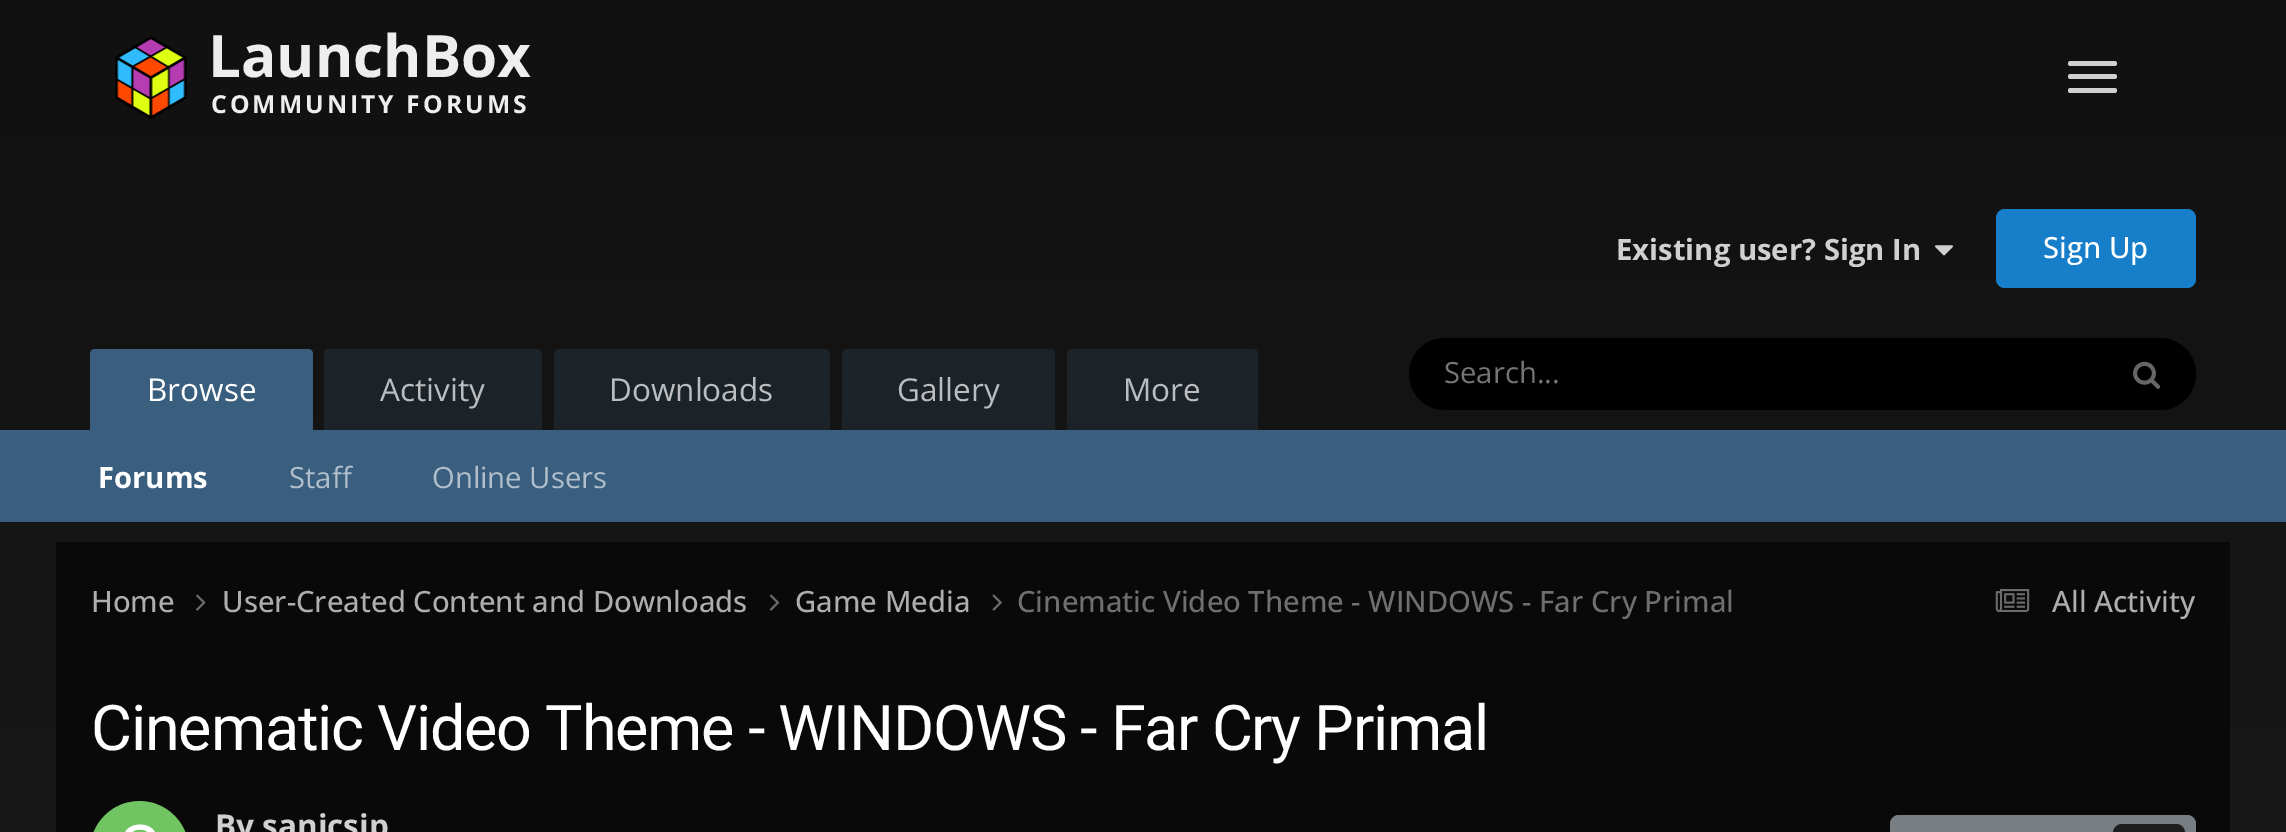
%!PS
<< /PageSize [2286 832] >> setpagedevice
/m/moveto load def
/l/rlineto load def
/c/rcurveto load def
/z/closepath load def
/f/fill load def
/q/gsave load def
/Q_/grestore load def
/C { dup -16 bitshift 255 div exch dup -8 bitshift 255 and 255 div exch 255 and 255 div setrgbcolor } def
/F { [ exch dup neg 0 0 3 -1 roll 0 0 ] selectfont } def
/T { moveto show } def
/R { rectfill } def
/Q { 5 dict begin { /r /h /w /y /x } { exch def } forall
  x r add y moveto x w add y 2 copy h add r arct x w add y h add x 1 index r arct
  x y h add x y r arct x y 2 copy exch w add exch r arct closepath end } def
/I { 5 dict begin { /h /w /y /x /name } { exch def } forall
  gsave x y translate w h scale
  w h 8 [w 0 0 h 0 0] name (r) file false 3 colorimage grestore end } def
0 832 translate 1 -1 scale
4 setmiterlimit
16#FFFFFF C
0 0 2286 832 R
q 0 0 m 2286 0 l 0 832 l -2286 0 l z clip newpath
<< /ShadingType 2 /ColorSpace /DeviceRGB /Coords [1143 0 1143 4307] /Extend [true true] /Function << /FunctionType 2 /Domain [0 1] /C0 [.067 .067 .067] /C1 [.2 .2 .2] /N 1 >> >> shfill Q_
q 56 542 m 2174 0 l 0 290 l -2174 0 l z clip newpath
<< /ShadingType 2 /ColorSpace /DeviceRGB /Coords [1143 0 1143 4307] /Extend [true true] /Function << /FunctionType 2 /Domain [0 1] /C0 [.027 .027 .027] /C1 [.078 .078 .078] /N 1 >> >> shfill Q_
(1.rgb) 115 36 72 83 I
/OpenSans-Bold 58.5 F
16#EEEEEE C
(LaunchBox) 208 77 T
/OpenSans-Bold 24.75 F
211 113 m 3 0 (COMMUNITY FORUMS) ashow
16#D0D0D0 C
2068 61 49 5 2.5 Q f
2068 74 49 5 2.5 Q f
2068 88 49 5 2.5 Q f
/OpenSans-Bold 29.25 F
(Existing user? Sign In) 1616 260 T
(2.rgb) 1935 245 18 11 I
16#177EC9 C
1996 209 200 79 9 Q f
/OpenSans-Medium 29.25 F
16#FFFFFF C
(Sign Up) 2043 258 T
16#000000 C
1409 338 787 72 36 Q f
/OpenSans-Regular 29.25 F
16#757575 C
(Search...) 1444 383 T
(3.rgb) 2133 361 28 28 I
16#1B2329 C
329 349 m 208 0 l 3 0 5 2 5 5 c 0 76 l -218 0 l 0 -76 l 0 -3 2 -5 5 -5 c z f
/OpenSans-Regular 31.5 F
16#BBBDBF C
(Activity) 380 401 T
16#1B2329 C
559 349 m 266 0 l 3 0 5 2 5 5 c 0 76 l -276 0 l 0 -76 l 0 -3 2 -5 5 -5 c z f
16#BBBDBF C
(Downloads) 609 401 T
16#1B2329 C
847 349 m 203 0 l 3 0 5 2 5 5 c 0 76 l -213 0 l 0 -76 l 0 -3 2 -5 5 -5 c z f
16#BBBDBF C
(Gallery) 897 401 T
16#395E7E C
95 349 m 213 0 l 3 0 5 2 5 5 c 0 76 l -223 0 l 0 -76 l 0 -3 2 -5 5 -5 c z f
16#FFFFFF C
(Browse) 147 401 T
16#395E7E C
0 430 2286 92 R
/OpenSans-Bold 29.25 F
16#FFFFFF C
(Forums) 98 488 T
/OpenSans-Regular 29.25 F
16#B0BFCB C
(Staff) 289 488 T
(Online Users) 432 488 T
16#1B2329 C
1072 349 m 181 0 l 3 0 5 2 5 5 c 0 76 l -191 0 l 0 -76 l 0 -3 2 -5 5 -5 c z f
/OpenSans-Regular 31.5 F
16#BBBDBF C
(More) 1123 401 T
/OpenSans-Medium 29.25 F
16#AEAEAE C
(Home) 91 612 T
(4.rgb) 196 594 10 17 I
(User-Created Content and Downloads) 222 612 T
(5.rgb) 769 594 11 17 I
(Game Media) 795 612 T
(6.rgb) 992 594 10 17 I
16#6F6F6F C
(Cinematic Video Theme - WINDOWS - Far Cry Primal) 1017 612 T
(7.rgb) 1995 589 35 23 I
16#AEAEAE C
(All Activity) 2052 612 T
/Roboto-Regular 63 F
16#FFFFFF C
91 750 m -1.25 0 (Cinematic Video Theme - WINDOWS - Far Cry Primal) ashow
(8.rgb) 93 801 93 31 I
/OpenSans-Bold 31.5 F
16#D0D0D0 C
(By sanicsip) 215 837 T
16#797E82 C
1890 815 306 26 9 Q f
16#1E1E1E C
2113 824 72 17 9 Q f
showpage
